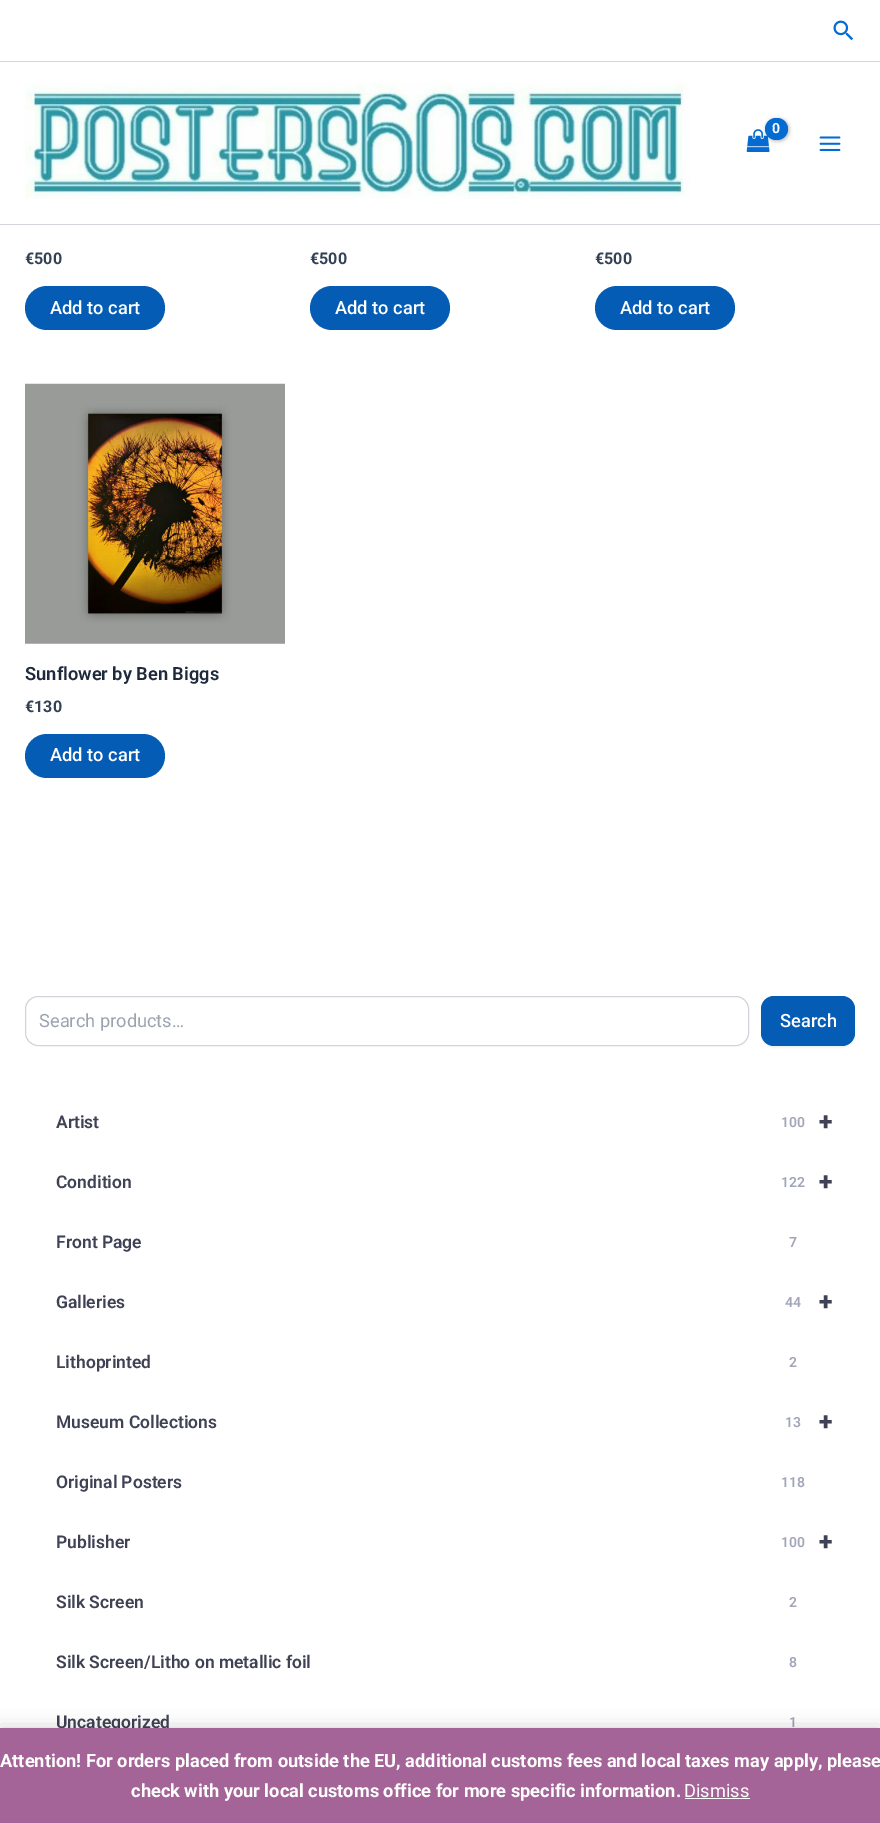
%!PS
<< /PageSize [880 1823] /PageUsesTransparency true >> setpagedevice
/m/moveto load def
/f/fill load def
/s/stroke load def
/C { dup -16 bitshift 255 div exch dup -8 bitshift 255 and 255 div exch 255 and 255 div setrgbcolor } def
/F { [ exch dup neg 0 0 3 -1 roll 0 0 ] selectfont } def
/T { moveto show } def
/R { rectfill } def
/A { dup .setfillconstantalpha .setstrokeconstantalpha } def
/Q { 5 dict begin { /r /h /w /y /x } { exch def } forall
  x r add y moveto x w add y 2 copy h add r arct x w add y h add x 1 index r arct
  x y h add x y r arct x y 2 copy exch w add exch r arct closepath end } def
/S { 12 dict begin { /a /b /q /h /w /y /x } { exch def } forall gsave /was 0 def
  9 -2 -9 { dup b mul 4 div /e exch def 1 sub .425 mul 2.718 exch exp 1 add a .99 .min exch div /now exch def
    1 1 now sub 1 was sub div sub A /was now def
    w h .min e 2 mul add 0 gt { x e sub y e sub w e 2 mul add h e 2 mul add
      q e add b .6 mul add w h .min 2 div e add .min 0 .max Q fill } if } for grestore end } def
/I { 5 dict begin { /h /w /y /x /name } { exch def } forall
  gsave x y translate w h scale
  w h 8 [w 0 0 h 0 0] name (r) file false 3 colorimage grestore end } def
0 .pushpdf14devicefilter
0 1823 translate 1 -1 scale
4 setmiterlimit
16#FFFFFF C
0 0 880 1823 R
16#D1D5DB C
0 61 880 1 R
(1.rgb) 833 20 20 21 I
0 224 880 1 R
(2.rgb) 25 82 665 117 I
(3.rgb) 746 129 24 23 I
16#000000 C
766 119 23 22 11 2 .3 S
16#046BD2 C
765 118 23 22 11 Q f
/Roboto-Bold 14 F
16#FFFFFF C
772 133 m -1 0 (0) ashow
(4.rgb) 819 136 22 16 I
/Roboto-Bold 16 F
16#334155 C
(€500) 25 264 T
16#045CB4 C
25 286 140 44 22 Q f
/Roboto-Medium 18.25 F
16#FFFFFF C
(Add to cart) 50 314 T
/Roboto-Bold 16 F
16#334155 C
(€500) 310 264 T
16#045CB4 C
310 286 140 44 22 Q f
/Roboto-Medium 18.25 F
16#FFFFFF C
(Add to cart) 335 314 T
/Roboto-Bold 16 F
16#334155 C
(€500) 595 264 T
16#045CB4 C
595 286 140 44 22 Q f
/Roboto-Medium 18.25 F
16#FFFFFF C
(Add to cart) 620 314 T
(5.rgb) 25 383 260 261 I
/Roboto-SemiBold 18.25 F
16#1E293B C
(Sunflower by Ben Biggs) 25 680 T
/Roboto-Bold 16 F
16#334155 C
(€130) 25 712 T
16#045CB4 C
25 734 140 44 22 Q f
/Roboto-Medium 18.25 F
16#FFFFFF C
(Add to cart) 50 761 T
16#D1D5DB C
25.5 996.5 723 49 12.5 Q s
/Roboto-Regular 18.25 F
16#9CA3AF C
(Search products…) 39 1027 T
16#000000 C
761 998 94 50 13 1 .05 S
16#045CB4 C
761 996 94 50 13 Q f
/Roboto-Medium 18.25 F
16#FFFFFF C
(Search) 780 1027 T
/Roboto-SemiBold 17.5 F
16#3F4254 C
(Artist) 56 1128 T
/Roboto-SemiBold 14 F
16#A1A5B7 C
(100) 781 1127 T
/Roboto-Black 25 F
16#3F4254 C
(+) 819 1130 T
/Roboto-SemiBold 17.5 F
(Condition) 56 1188 T
/Roboto-SemiBold 14 F
16#A1A5B7 C
(122) 781 1187 T
/Roboto-Black 25 F
16#3F4254 C
(+) 819 1190 T
/Roboto-SemiBold 17.5 F
(Front Page) 56 1248 T
/Roboto-SemiBold 14 F
16#A1A5B7 C
(7) 789 1247 T
/Roboto-SemiBold 17.5 F
16#3F4254 C
(Galleries) 56 1308 T
/Roboto-SemiBold 14 F
16#A1A5B7 C
(44) 785 1307 T
/Roboto-Black 25 F
16#3F4254 C
(+) 819 1310 T
/Roboto-SemiBold 17.5 F
(Lithoprinted) 56 1368 T
/Roboto-SemiBold 14 F
16#A1A5B7 C
(2) 789 1367 T
/Roboto-SemiBold 17.5 F
16#3F4254 C
(Museum Collections) 56 1428 T
/Roboto-SemiBold 14 F
16#A1A5B7 C
(13) 785 1427 T
/Roboto-Black 25 F
16#3F4254 C
(+) 819 1430 T
/Roboto-SemiBold 17.5 F
(Original Posters) 56 1488 T
/Roboto-SemiBold 14 F
16#A1A5B7 C
(118) 781 1487 T
/Roboto-SemiBold 17.5 F
16#3F4254 C
(Publisher) 56 1548 T
/Roboto-SemiBold 14 F
16#A1A5B7 C
(100) 781 1547 T
/Roboto-Black 25 F
16#3F4254 C
(+) 819 1550 T
/Roboto-SemiBold 17.5 F
(Silk Screen) 56 1608 T
/Roboto-SemiBold 14 F
16#A1A5B7 C
(2) 789 1607 T
/Roboto-SemiBold 17.5 F
16#3F4254 C
(Silk Screen/Litho on metallic foil) 56 1668 T
/Roboto-SemiBold 14 F
16#A1A5B7 C
(8) 789 1667 T
/Roboto-SemiBold 17.5 F
16#3F4254 C
(Uncategorized) 56 1728 T
/Roboto-SemiBold 14 F
16#A1A5B7 C
(1) 789 1727 T
16#000000 C
0 1729 880 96 0 9 .2 S
16#A46497 C
0 1728 880 95 R
/Roboto-Bold 18.25 F
16#FFFFFF C
(Attention! For orders placed from outside the EU, additional customs fees and local taxes may apply, please) 0 1767 T
(check with your local customs office for more specific information.) 131 1797 T
/Roboto-Regular 18.25 F
(Dismiss) 684 1797 T
685 1798 65 1 R
.poppdf14devicefilter showpage
